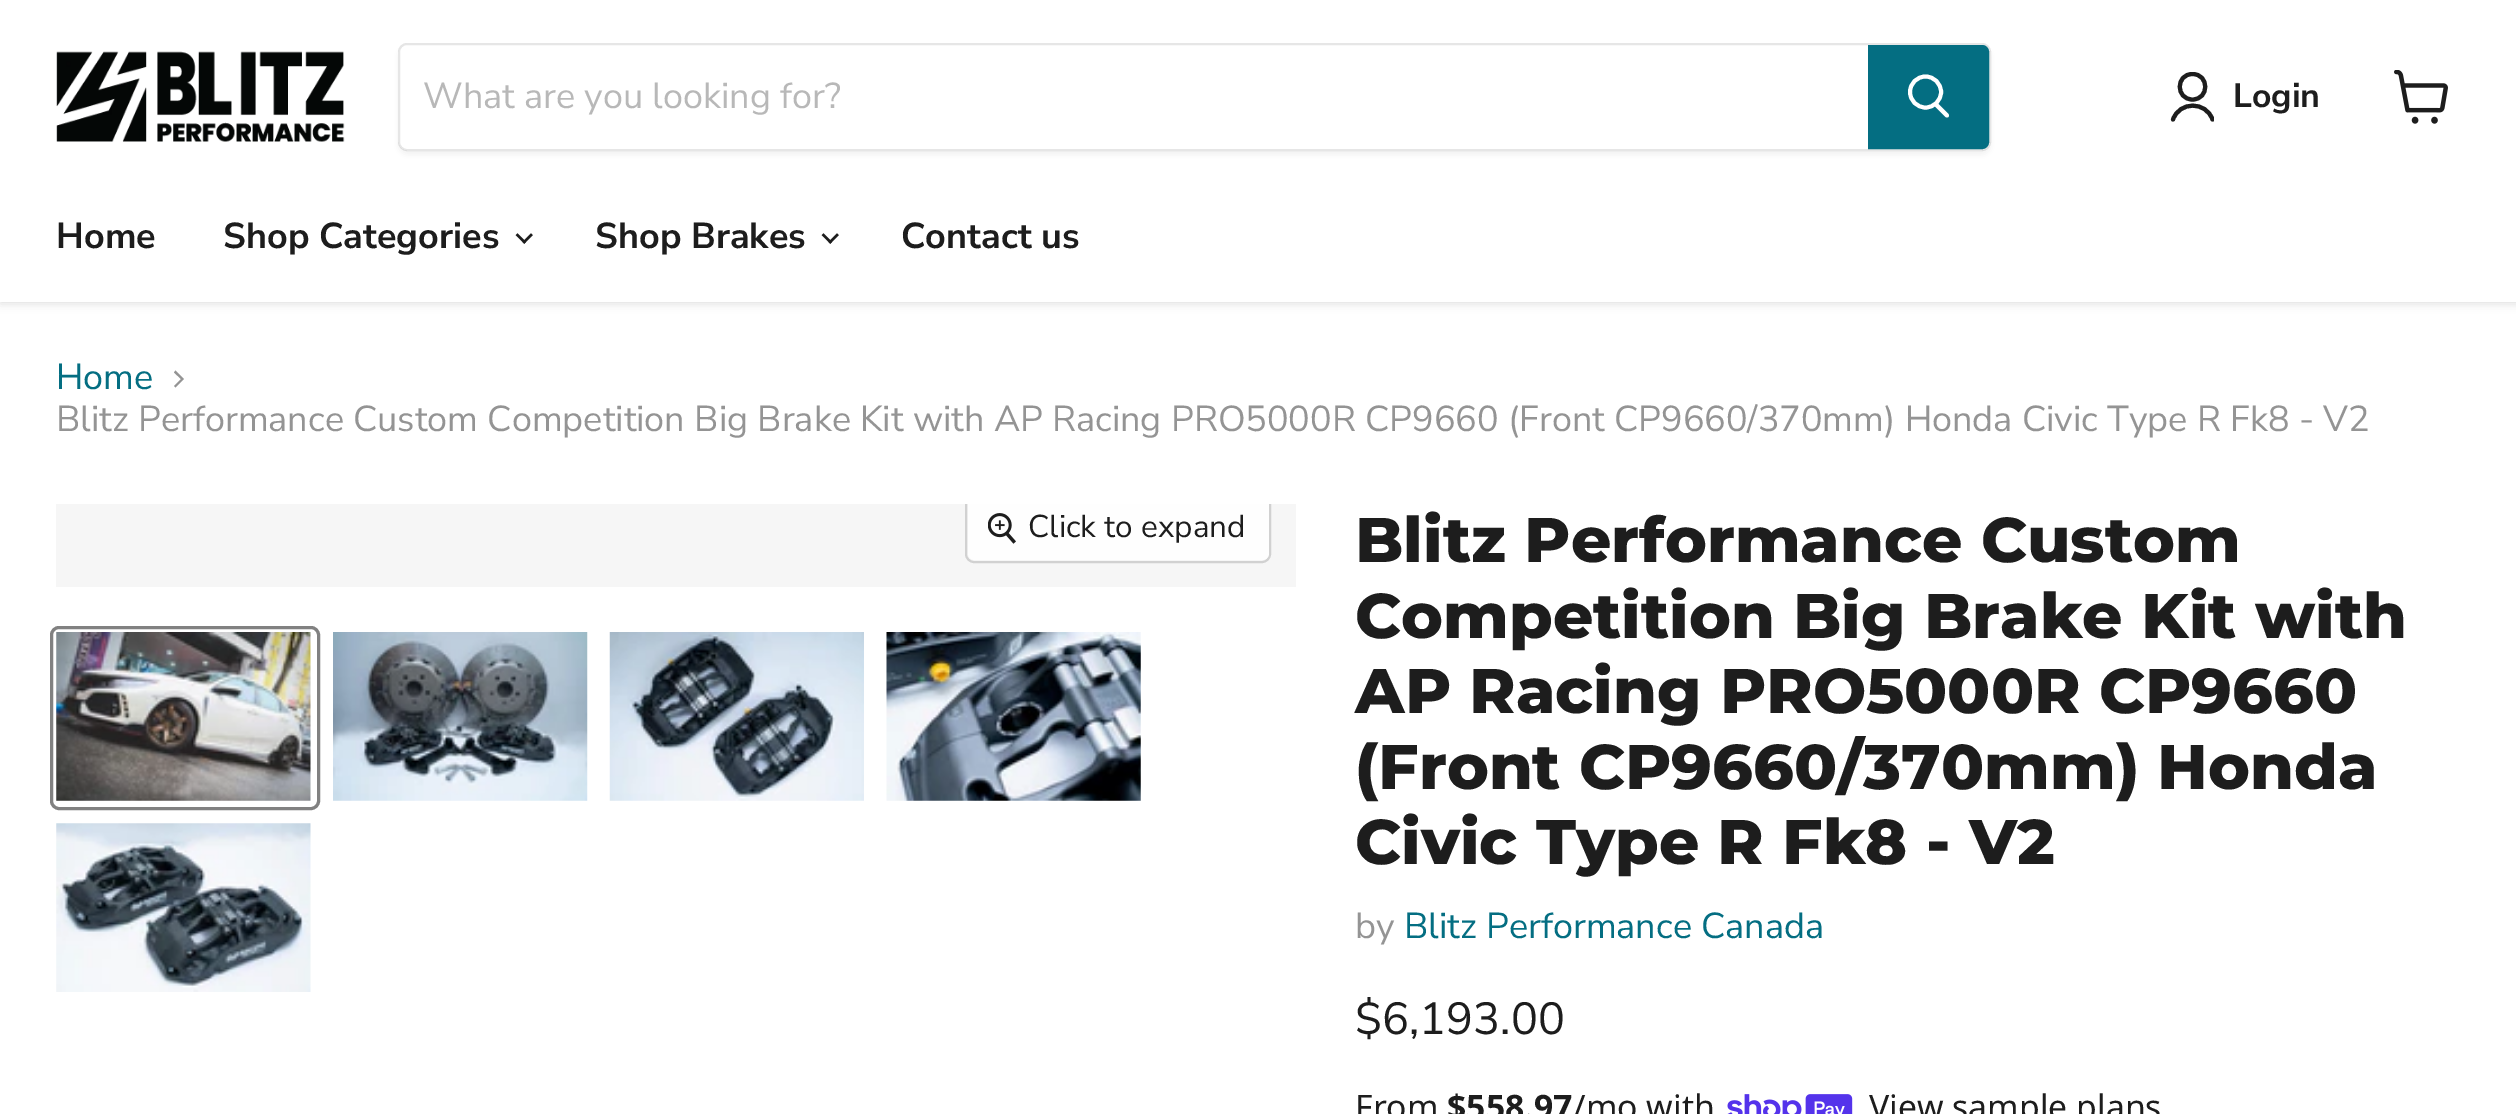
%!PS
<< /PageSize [2516 1114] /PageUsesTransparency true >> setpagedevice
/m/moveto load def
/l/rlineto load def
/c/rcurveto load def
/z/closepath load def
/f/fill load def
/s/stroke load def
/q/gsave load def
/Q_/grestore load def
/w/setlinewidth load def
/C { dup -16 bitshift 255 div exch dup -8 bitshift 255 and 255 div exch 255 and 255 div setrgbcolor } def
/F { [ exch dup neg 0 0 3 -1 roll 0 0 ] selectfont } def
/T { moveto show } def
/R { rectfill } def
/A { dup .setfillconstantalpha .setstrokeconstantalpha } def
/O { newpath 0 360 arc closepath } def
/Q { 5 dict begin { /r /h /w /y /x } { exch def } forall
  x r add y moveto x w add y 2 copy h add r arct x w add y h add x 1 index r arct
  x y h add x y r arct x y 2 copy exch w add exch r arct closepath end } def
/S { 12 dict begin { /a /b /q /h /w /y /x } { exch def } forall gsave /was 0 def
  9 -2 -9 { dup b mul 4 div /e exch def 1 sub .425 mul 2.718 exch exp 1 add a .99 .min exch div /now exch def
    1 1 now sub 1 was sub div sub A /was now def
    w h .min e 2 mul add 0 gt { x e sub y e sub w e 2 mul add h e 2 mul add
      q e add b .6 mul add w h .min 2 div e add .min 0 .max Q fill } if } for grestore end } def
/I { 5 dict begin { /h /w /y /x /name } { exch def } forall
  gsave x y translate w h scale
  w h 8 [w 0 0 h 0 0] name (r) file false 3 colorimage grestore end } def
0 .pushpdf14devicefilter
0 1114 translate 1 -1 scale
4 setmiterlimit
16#FFFFFF C
0 0 2516 1114 R
16#808080 C
0 2 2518 302 0 4.5 .25 S
16#FFFFFF C
0 0 2516 302 R
(1.rgb) 56 51 289 91 I
q
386 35 m 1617 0 l 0 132 l -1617 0 l z 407 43 m 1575 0 l 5 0 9 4 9 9 c 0 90 l 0 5 -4 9 -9 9 c -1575 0 l -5 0 -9 -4 -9 -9 c 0 -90 l 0 -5 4 -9 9 -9 c z eoclip newpath
16#808080 C
398 47 1593 108 9 3.5 .11 S
Q_
0.2 A
16#808080 C
2 w
399 44 1591 106 8 Q s
/NunitoSans-Regular 36 F
1 A
16#B8B8B8 C
(What are you looking for?) 423 108 T
16#046E82 C
1869 46 m 113 0 l 3.5 0 6 2.5 6 6 c 0 90 l 0 3.5 -2.5 6 -6 6 c -113 0 l z q f Q_
s
16#FFFFFF C
3.9 w
1 setlinecap
1947 115.5 m -11 -11 l s
0 setlinecap
1925.5 92 15.5 O s
16#1D1D1D C
4.1 w
1 setlinecap
1 setlinejoin
2192.5 99.5 m 17 0 17 -25.5 0 -25.5 c -17 0 -17 25.5 0 25.5 c z s
q
2169 70 45 54 rectclip
2212.5 119.5 m -6.5 -18.5 -33 -18.5 -39.5 0 c s
Q_
/NunitoSans-Bold 33.75 F
(Login) 2233 107 T
(2.rgb) 2394 70 54 54 I
/NunitoSans-Bold 36 F
(Home) 56 248 T
(Shop Categories) 223 248 T
(3.rgb) 515 233 18 11 I
(Shop Brakes) 595 248 T
(3.rgb) 821 233 18 11 I
(Contact us) 901 248 T
/NunitoSans-Regular 36 F
16#046E82 C
(Home) 56 389 T
16#949494 C
174 386 m 1.5 1.5 l 8.5 -8.5 l -8.5 -8.5 l -1.5 2 l 7 6.5 l z eofill
(Blitz Performance Custom Competition Big Brake Kit with AP Racing PRO5000R CP9660 \(Front CP9660/370mm\) Honda Civic Type R Fk8 - V2) 56 431 T
16#F6F6F6 C
56 504 1240 83 R
q
56 504 1240 83 rectclip
16#D1D1D1 C
2 w
0 setlinecap
0 setlinejoin
966 494 304 68 8 Q s
Q_
0.9 A
16#FFFFFF C
968 504 m 301 0 l 0 49 l 0 4 -3 7 -7 7 c -287 0 l -4 0 -7 -3 -7 -7 c z f
1 A
(4.rgb) 988 513 28 31 I
/NunitoSans-Regular 31.5 F
16#1D1D1D C
(Click to expand) 1028 537 T
16#818181 C
3 w
0 setlinecap
0 setlinejoin
51.5 627.5 267 181 7.5 Q s
(5.rgb) 56 632 255 169 I
(6.rgb) 333 632 255 169 I
(7.rgb) 609 632 255 169 I
(8.rgb) 886 632 255 169 I
(9.rgb) 56 823 255 169 I
/Montserrat-ExtraBold 63 F
16#1D1D1D C
(Blitz Performance Custom) 1355 562 T
(Competition Big Brake Kit with) 1355 638 T
(AP Racing PRO5000R CP9660) 1355 713 T
(\(Front CP9660/370mm\) Honda) 1355 789 T
(Civic Type R Fk8 - V2) 1355 864 T
/NunitoSans-Regular 36 F
16#949494 C
(by) 1355 938 T
16#046E82 C
(Blitz Performance Canada) 1404 938 T
/NunitoSans-Regular 45 F
16#1D1D1D C
($6,193.00) 1355 1034 T
/NotoSans-Regular 33.75 F
(From) 1355 1119 T
/NotoSans-Bold 33.75 F
($558.97) 1447 1119 T
/NotoSans-Regular 33.75 F
(/mo with) 1573 1119 T
(10.rgb) 1727 1094 126 20 I
(View sample plans) 1869 1119 T
.poppdf14devicefilter showpage
